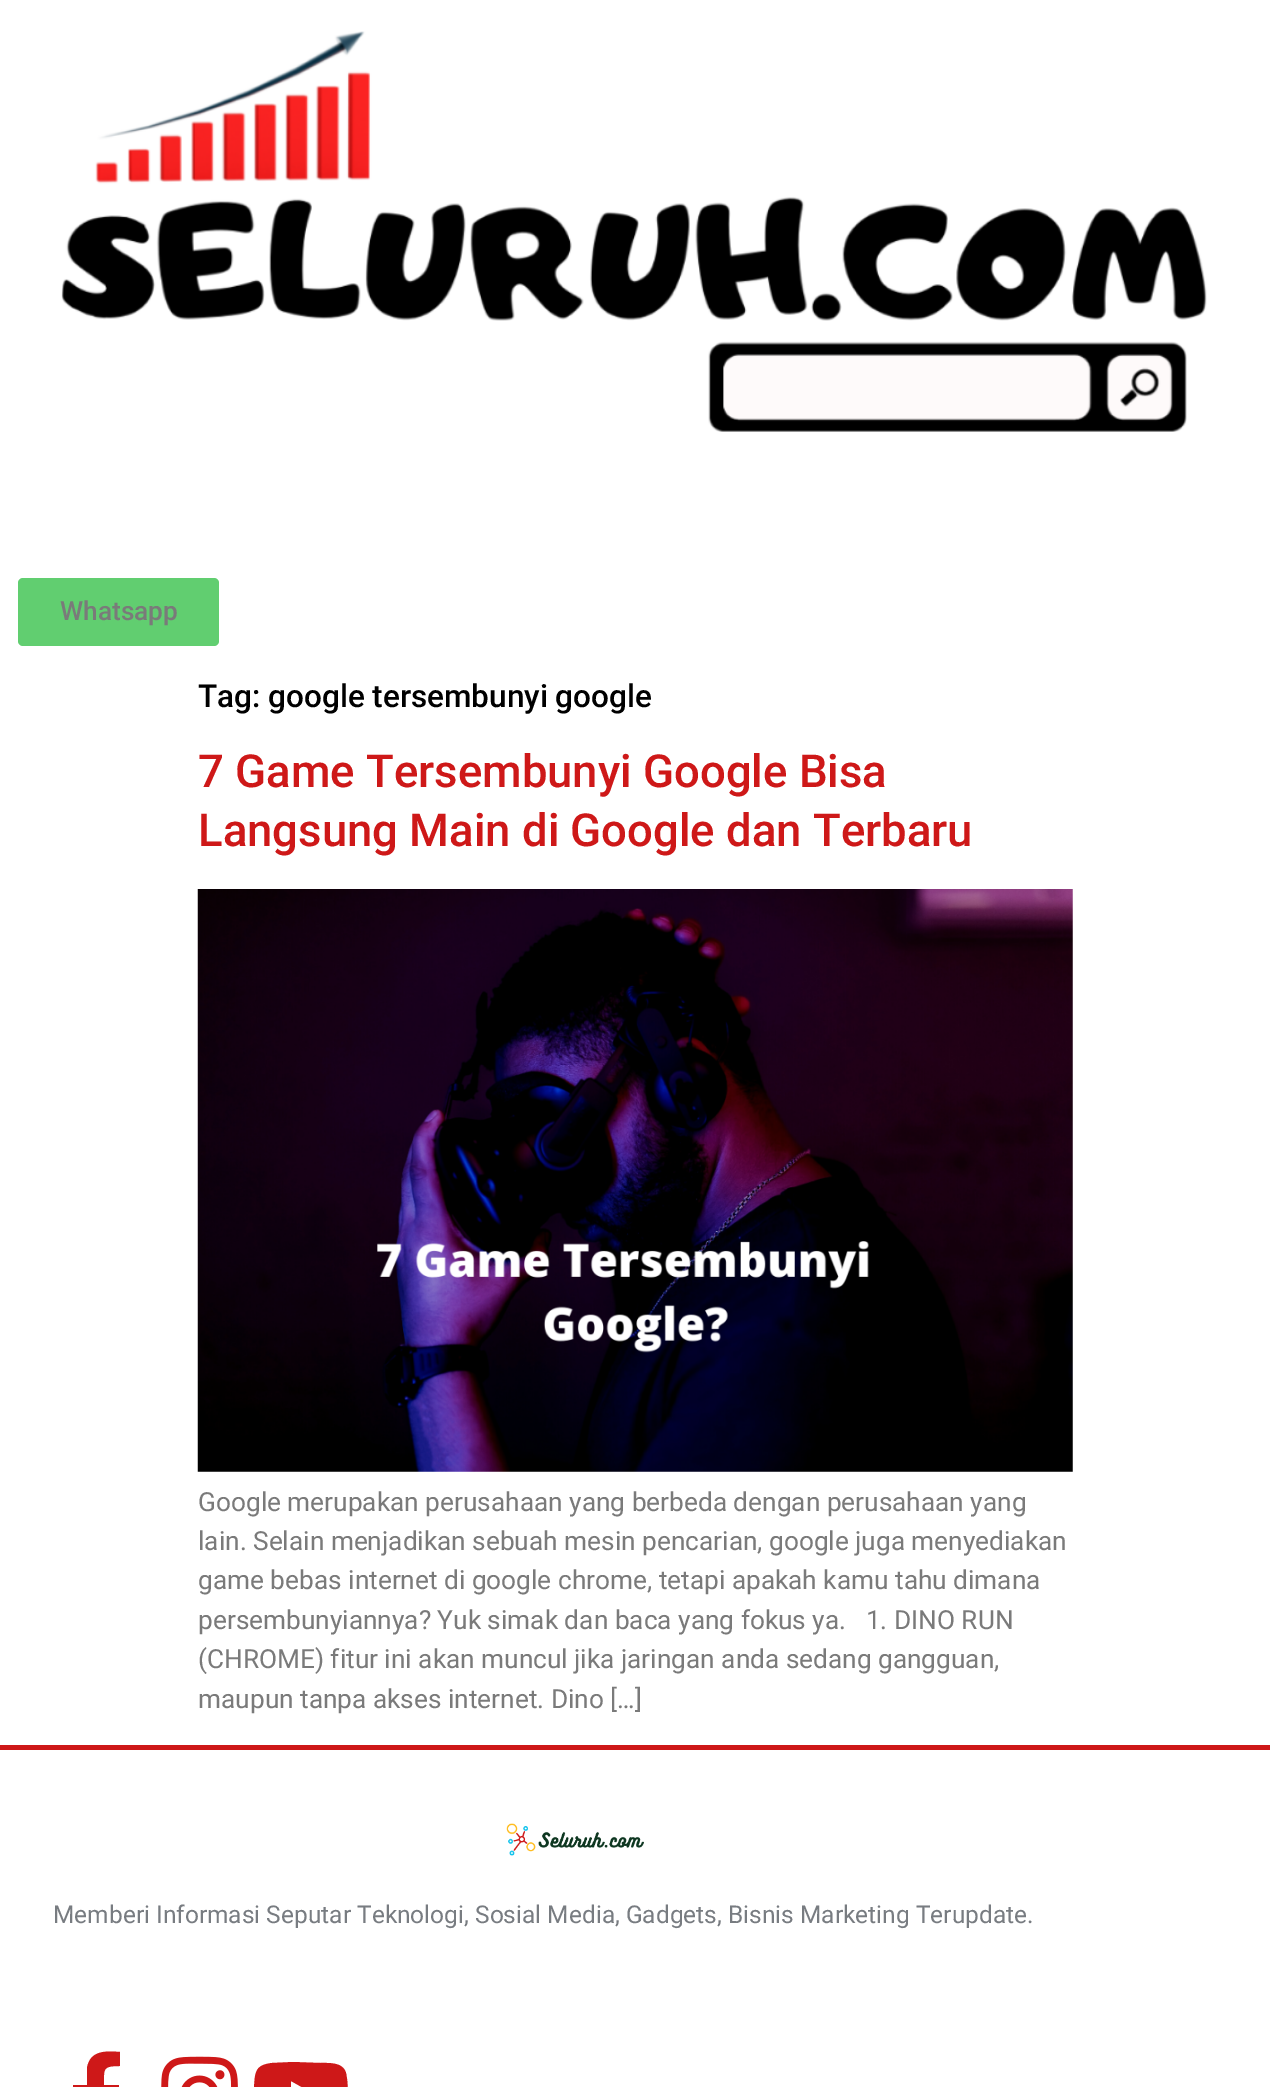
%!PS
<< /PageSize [1270 2087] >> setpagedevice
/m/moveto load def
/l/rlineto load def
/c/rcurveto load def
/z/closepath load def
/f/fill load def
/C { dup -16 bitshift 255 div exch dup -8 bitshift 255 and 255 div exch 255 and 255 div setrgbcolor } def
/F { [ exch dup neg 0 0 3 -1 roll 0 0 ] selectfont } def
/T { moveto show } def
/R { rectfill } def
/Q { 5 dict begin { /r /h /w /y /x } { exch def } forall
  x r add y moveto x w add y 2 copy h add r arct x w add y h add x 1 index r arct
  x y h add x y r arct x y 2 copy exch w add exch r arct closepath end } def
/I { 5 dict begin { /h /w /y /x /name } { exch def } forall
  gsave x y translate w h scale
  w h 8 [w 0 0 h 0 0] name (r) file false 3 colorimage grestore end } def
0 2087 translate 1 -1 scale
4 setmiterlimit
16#FFFFFF C
0 0 1270 2087 R
(1.rgb) 61 31 1146 401 I
16#61CE70 C
18 578 201 68 5 Q f
/Roboto-Medium 26.25 F
16#7A7A7A C
(Whatsapp) 60 620 T
/Roboto-Medium 31.5 F
16#000000 C
(Tag: google tersembunyi google) 198 707 T
/Roboto-Medium 45.5 F
16#CE1818 C
(7 Game Tersembunyi Google Bisa) 198 787 T
(Langsung Main di Google dan Terbaru) 198 846 T
(2.rgb) 197 889 876 583 I
/Roboto-Regular 26.25 F
16#7A7A7A C
(Google merupakan perusahaan yang berbeda dengan perusahaan yang) 198 1511 T
(lain. Selain menjadikan sebuah mesin pencarian, google juga menyediakan) 198 1550 T
(game bebas internet di google chrome, tetapi apakah kamu tahu dimana) 198 1589 T
(persembunyiannya? Yuk simak dan baca yang fokus ya.   1. DINO RUN) 198 1629 T
(\(CHROME\) fitur ini akan muncul jika jaringan anda sedang gangguan,) 198 1668 T
(maupun tanpa akses internet. Dino […]) 198 1708 T
16#CE1818 C
0 1745 1270 5 R
(3.rgb) 506 1823 138 33 I
/Roboto-Regular 24.5 F
16#787C81 C
(Memberi Informasi Seputar Teknologi, Sosial Media, Gadgets, Bisnis Marketing Terupdate.) 53 1923 T
16#CE1818 C
117 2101 m -13 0 l 0 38 l -17 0 l 0 -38 l -14 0 l 0 -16 l 14 0 l 0 -17 l 3 -18 19 -17 33 -16 c 0 14 l -18 0 -16 3 -16 19 c 15 0 l z f
(4.rgb) 161 2056 77 31 I
346 2073 m 2 9 2 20 2 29 c -1 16 -1 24 -18 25 c -21 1 l -27 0 l -9 -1 -23 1 -26 -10 c -2 -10 -2 -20 -2 -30 c 1 -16 1 -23 18 -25 c 21 -1 l 27 1 l 9 0 23 -1 26 10 c z 291 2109 m 25 -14 l -25 -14 l z f
showpage
